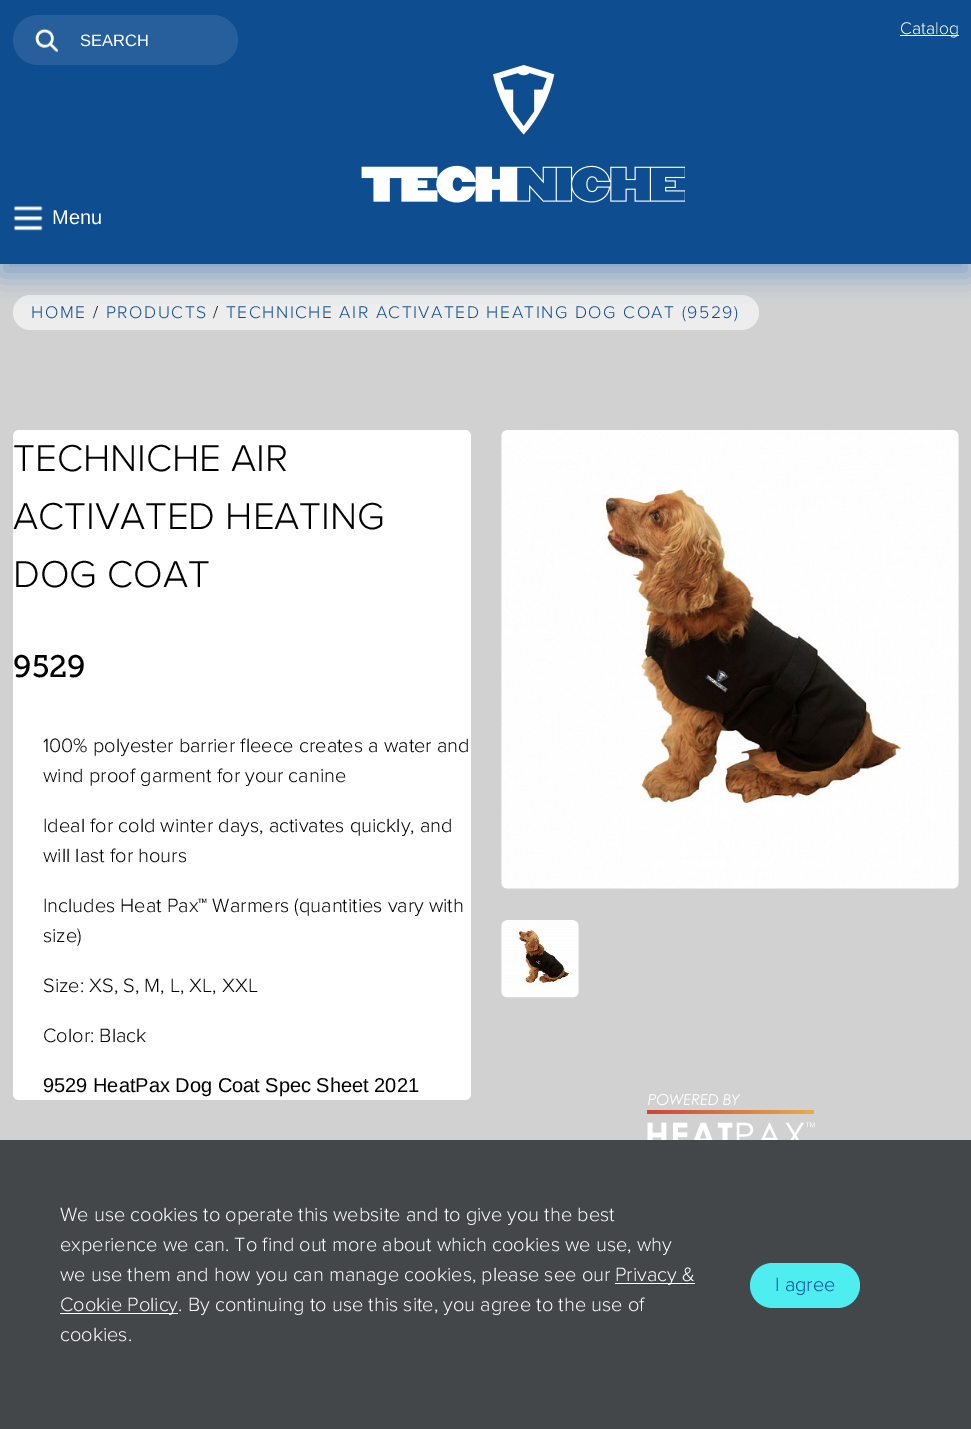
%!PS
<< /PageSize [971 1429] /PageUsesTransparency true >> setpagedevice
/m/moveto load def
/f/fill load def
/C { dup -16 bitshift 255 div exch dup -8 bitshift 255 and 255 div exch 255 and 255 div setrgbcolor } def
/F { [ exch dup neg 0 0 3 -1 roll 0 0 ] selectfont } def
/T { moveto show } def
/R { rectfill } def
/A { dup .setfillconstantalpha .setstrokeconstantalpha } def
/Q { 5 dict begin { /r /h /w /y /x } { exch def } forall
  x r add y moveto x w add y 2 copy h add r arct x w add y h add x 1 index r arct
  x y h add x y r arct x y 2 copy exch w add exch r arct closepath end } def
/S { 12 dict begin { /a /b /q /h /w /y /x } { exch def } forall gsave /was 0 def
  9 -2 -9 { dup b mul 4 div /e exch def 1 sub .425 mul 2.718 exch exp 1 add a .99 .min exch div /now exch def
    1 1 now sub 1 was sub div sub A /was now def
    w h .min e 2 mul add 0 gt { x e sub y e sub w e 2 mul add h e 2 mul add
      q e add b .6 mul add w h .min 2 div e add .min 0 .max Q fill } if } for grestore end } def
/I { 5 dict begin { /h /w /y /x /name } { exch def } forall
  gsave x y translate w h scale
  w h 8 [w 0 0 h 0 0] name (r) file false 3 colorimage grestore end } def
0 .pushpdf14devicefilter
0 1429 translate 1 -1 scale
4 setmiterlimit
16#D1D1D1 C
0 0 971 1429 R
16#EDEDED C
13 295 746 35 17.5 Q f
16#1366BE C
0 13 971 263 0 12.5 .4 S
16#0E4D90 C
0 0 971 264 R
16#FFFFFF C
900 35 59 1 R
/ProximaNova-Light 17.5 F
(Catalog) 900 34 T
16#265F9B C
13 15 225 50 25 Q f
(1.rgb) 35 28 23 24 I
/LiberationSans-Regular 16.5 F
16#FFFFFF C
(SEARCH) 80 46 T
(2.rgb) 361 65 324 138 I
(3.rgb) 14 206 29 25 I
/LiberationSans-Regular 20 F
(Menu) 52 224 T
/ProximaNova-Light 17.5 F
16#0E4D90 C
31 318 m 1.5 0 (HOME) ashow
16#000000 C
93 318 m 1.5 0 (/) ashow
16#0E4D90 C
106 318 m 1.5 0 (PRODUCTS) ashow
16#000000 C
213 318 m 1.5 0 (/) ashow
16#0E4D90 C
226 318 m 1.5 0 (TECHNICHE AIR ACTIVATED HEATING DOG COAT \(9529\)) ashow
16#FFFFFF C
13 430 458 670 6 Q f
/ProximaNova-Light 38.75 F
16#000000 C
(TECHNICHE AIR) 13 471 T
(ACTIVATED HEATING) 13 529 T
(DOG COAT) 13 587 T
/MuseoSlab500-Regular 31 F
(9529) 13 677 T
/ProximaNova-Light 20 F
(100% polyester barrier fleece creates a water and) 43 752 T
(wind proof garment for your canine) 43 782 T
(Ideal for cold winter days, activates quickly, and) 43 832 T
(will last for hours) 43 862 T
(Includes Heat Pax™ Warmers \(quantities vary with) 43 912 T
(size\)) 43 942 T
(Size: XS, S, M, L, XL, XXL) 43 992 T
(Color: Black) 43 1042 T
/LiberationSans-Regular 20 F
(9529 HeatPax Dog Coat Spec Sheet 2021) 43 1092 T
(4.rgb) 501 430 458 459 I
(5.rgb) 501 920 78 78 I
(6.rgb) 647 1093 168 47 I
16#43474A C
0 1140 971 289 R
/ProximaNova-Light 20 F
16#FFFFFF C
(We use cookies to operate this website and to give you the best) 60 1221 T
(experience we can. To find out more about which cookies we use, why) 60 1251 T
(we use them and how you can manage cookies, please see our) 60 1281 T
615 1283 80 1 R
(Privacy &) 615 1281 T
60 1313 118 1 R
(Cookie Policy. By continuing to use this site, you agree to the use of) 60 1311 T
(cookies.) 60 1341 T
16#4DEDF0 C
750 1263 110 45 22.5 Q f
16#0E4D90 C
(I agree) 775 1291 T
.poppdf14devicefilter showpage
